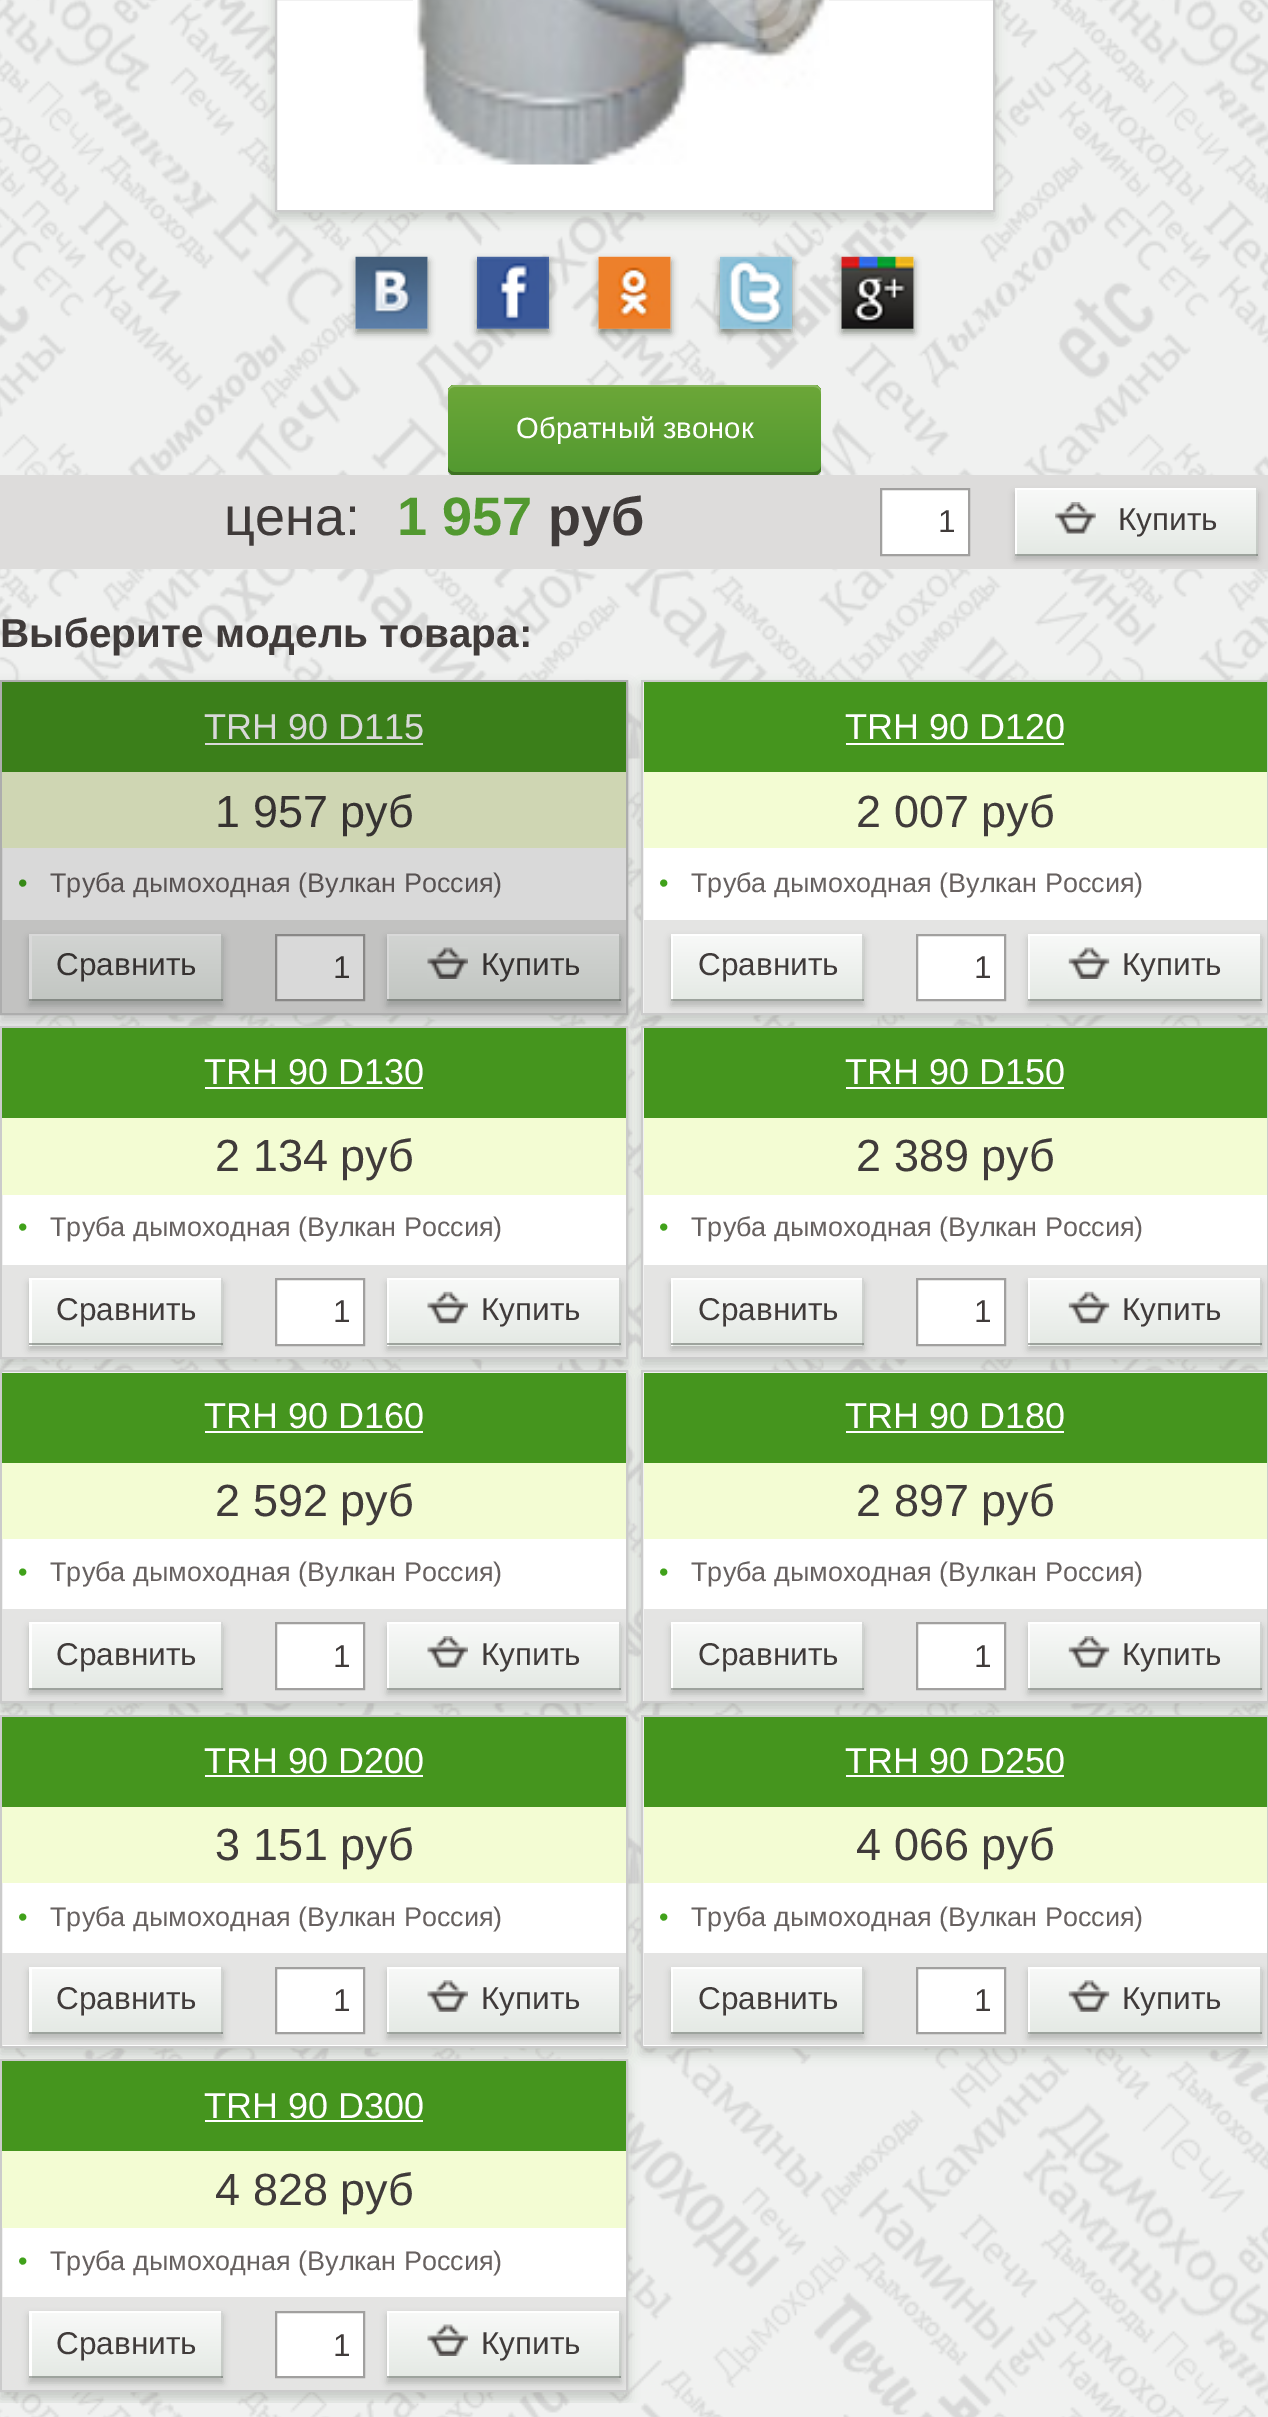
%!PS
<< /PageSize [1268 2417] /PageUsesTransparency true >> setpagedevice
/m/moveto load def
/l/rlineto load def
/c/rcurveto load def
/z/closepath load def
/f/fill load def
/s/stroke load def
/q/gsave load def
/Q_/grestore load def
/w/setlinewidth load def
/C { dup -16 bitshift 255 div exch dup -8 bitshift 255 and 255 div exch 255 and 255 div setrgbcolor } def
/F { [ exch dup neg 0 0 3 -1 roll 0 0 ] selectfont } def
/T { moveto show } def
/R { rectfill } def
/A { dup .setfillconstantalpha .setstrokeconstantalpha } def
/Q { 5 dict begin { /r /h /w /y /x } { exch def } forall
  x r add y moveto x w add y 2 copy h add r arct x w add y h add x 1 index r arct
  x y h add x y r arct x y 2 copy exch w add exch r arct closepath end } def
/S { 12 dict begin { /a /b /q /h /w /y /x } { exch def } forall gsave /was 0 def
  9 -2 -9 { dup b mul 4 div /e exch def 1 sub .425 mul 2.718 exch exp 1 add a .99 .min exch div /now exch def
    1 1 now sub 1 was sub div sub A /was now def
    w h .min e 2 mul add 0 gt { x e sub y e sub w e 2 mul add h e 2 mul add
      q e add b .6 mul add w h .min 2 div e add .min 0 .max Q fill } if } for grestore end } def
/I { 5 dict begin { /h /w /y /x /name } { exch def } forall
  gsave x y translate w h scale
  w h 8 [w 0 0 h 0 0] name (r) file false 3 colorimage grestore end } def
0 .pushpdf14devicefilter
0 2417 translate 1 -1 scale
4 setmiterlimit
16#F0F1F0 C
0 0 1268 2417 R
(1.rgb) 0 0 1268 2417 I
16#2A3624 C
275 -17 720 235 0 5.5 .2 S
16#FFFFFF C
276 -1 m 718 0 l 0 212 l -718 0 l z q f Q_
16#CBCBCB C
2 w
s
(2.rgb) 413 0 416 165 I
(3.rgb) 706 0 96 39 I
16#2A3624 C
356 261 72 72 0 3.5 .5 S
(4.rgb) 355 256 73 73 I
477 261 72 72 0 3.5 .5 S
(5.rgb) 477 256 72 73 I
599 261 72 72 0 3.5 .5 S
(6.rgb) 598 256 73 73 I
720 261 72 72 0 3.5 .5 S
(7.rgb) 720 256 72 73 I
842 261 72 72 0 3.5 .5 S
(8.rgb) 841 256 73 73 I
0.35 A
16#2A3724 C
448 470 m 0 4 3 7 7 7 c 359 0 l 4 0 7 -3 7 -7 c -1 3 -3 5 -7 5 c -360 0 l -3 0 -5 -2 -6 -5 c z f
1 A
q 448 385 373 90 7 Q clip newpath
<< /ShadingType 2 /ColorSpace /DeviceRGB /Coords [635 385 635 475] /Extend [true true] /Function << /FunctionType 2 /Domain [0 1] /C0 [.424 .655 .22] /C1 [.322 .6 .188] /N 1 >> >> shfill Q_
0.5 A
16#284917 C
448 466 m 0 2 l 0 4 3 7 7 7 c 359 0 l 4 0 7 -3 7 -7 c 0 -2 l 0 3 -3 6 -7 6 c -360 0 l -3 0 -6 -3 -6 -6 c z f
0.2 A
16#FFFFFF C
454 387 m 360 0 l 4 0 7 3 7 7 c 0 -2 l 0 -4 -3 -7 -7 -7 c -359 0 l -4 0 -7 3 -7 7 c 0 2 l 0 -4 3 -7 6 -7 c z f
/LiberationSans-Regular 29.25 F
1 A
(Обратный звонок) 516 438 T
16#DDDCDB C
0 475 1268 94 R
/LiberationSans-Regular 54 F
16#403B3A C
(цена:) 224 535 T
/LiberationSans-Bold 54 F
16#529930 C
(1 957) 397 535 T
16#403B3A C
(руб) 548 535 T
16#FFFFFF C
881 489 m 88 0 l 0 66 l -88 0 l z q f Q_
16#A1A09F C
s
/LiberationSans-Regular 31.5 F
16#403B3A C
(1) 938 532 T
16#373B37 C
1015 493 243 67 0 3.5 .25 S
q 1017 490 m 241 0 l 0 66 l -241 0 l z clip newpath
<< /ShadingType 2 /ColorSpace /DeviceRGB /Coords [1136 488 1136 556] /Extend [true true] /Function << /FunctionType 2 /Domain [0 1] /C0 [.973 .98 .973] /C1 [.894 .914 .894] /N 1 >> >> shfill Q_
q
1015 488 243 68 rectclip
16#FFFFFF C
792 266 m 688 0 l 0 512 l -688 0 l z 1017 490 m 243 0 l 0 68 l -243 0 l z eofill
Q_
0.25 A
16#626962 C
1256 488 2 68 R
0.55 A
1015 554 243 2 R
1 A
(9.rgb) 1055 502 41 32 I
16#403B3A C
(Купить) 1118 530 T
/LiberationSans-Bold 40.5 F
(Выберите модель товара:) 0 647 T
16#242E1F C
0 686 628 336 0 5.5 .2 S
16#D9D9D9 C
2 848 624 72 R
16#ADADAD C
1 681 626 333 rectstroke
16#3B7F1A C
2 682 624 90 R
/LiberationSans-Regular 36 F
16#D9D9D9 C
(TRH 90 D115) 204 739 T
205 743 218 2 R
16#CFD6B3 C
2 772 624 76 R
/LiberationSans-Regular 45 F
16#363231 C
(1 957 руб) 215 827 T
/LiberationSans-Regular 27 F
16#368916 C
(•) 18 892 T
16#585252 C
(Труба дымоходная \(Вулкан Россия\)) 50 892 T
16#C2C2C1 C
2 920 624 93 R
16#2F322F C
29 938 194 68 0 3.5 .25 S
q 32 936 m 191 0 l 0 65 l -191 0 l z clip newpath
<< /ShadingType 2 /ColorSpace /DeviceRGB /Coords [126 934 126 1001] /Extend [true true] /Function << /FunctionType 2 /Domain [0 1] /C0 [.827 .835 .827] /C1 [.761 .776 .761] /N 1 >> >> shfill Q_
q
29 934 194 67 rectclip
16#D9D9D9 C
-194 711 m 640 0 l 0 513 l -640 0 l z 32 936 m 193 0 l 0 68 l -193 0 l z eofill
Q_
0.25 A
16#535953 C
221 934 2 67 R
0.55 A
29 999 194 2 R
/LiberationSans-Regular 31.5 F
1 A
16#363231 C
(Сравнить) 56 975 T
16#D9D9D9 C
276 935 m 88 0 l 0 65 l -88 0 l z q f Q_
16#898887 C
s
16#363231 C
(1) 333 978 T
16#2F322F C
387 938 234 68 0 3.5 .25 S
q 389 936 m 232 0 l 0 65 l -232 0 l z clip newpath
<< /ShadingType 2 /ColorSpace /DeviceRGB /Coords [504 934 504 1001] /Extend [true true] /Function << /FunctionType 2 /Domain [0 1] /C0 [.827 .835 .827] /C1 [.761 .776 .761] /N 1 >> >> shfill Q_
q
387 934 234 67 rectclip
16#D9D9D9 C
164 711 m 680 0 l 0 513 l -680 0 l z 389 936 m 234 0 l 0 68 l -234 0 l z eofill
Q_
0.25 A
16#535953 C
619 934 2 67 R
0.55 A
387 999 234 2 R
1 A
(10.rgb) 427 947 41 32 I
16#363231 C
(Купить) 481 975 T
16#2A3624 C
641 686 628 336 0 5.5 .2 S
16#FFFFFF C
642 681 m 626 0 l 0 333 l -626 0 l z q f Q_
16#CBCBCB C
s
16#45951E C
644 682 623 90 R
/LiberationSans-Regular 36 F
16#FFFFFF C
(TRH 90 D120) 845 739 T
846 743 218 2 R
16#F3FCD3 C
644 772 623 76 R
/LiberationSans-Regular 45 F
16#403B3A C
(2 007 руб) 856 827 T
/LiberationSans-Regular 27 F
16#40A11A C
(•) 659 892 T
16#676160 C
(Труба дымоходная \(Вулкан Россия\)) 691 892 T
16#E4E4E3 C
644 920 623 93 R
16#373B37 C
671 938 193 68 0 3.5 .25 S
q 673 936 m 191 0 l 0 65 l -191 0 l z clip newpath
<< /ShadingType 2 /ColorSpace /DeviceRGB /Coords [767 934 767 1001] /Extend [true true] /Function << /FunctionType 2 /Domain [0 1] /C0 [.973 .98 .973] /C1 [.894 .914 .894] /N 1 >> >> shfill Q_
q
671 934 193 67 rectclip
16#FFFFFF C
448 711 m 639 0 l 0 513 l -639 0 l z 673 936 m 193 0 l 0 68 l -193 0 l z eofill
Q_
0.25 A
16#626962 C
862 934 2 67 R
0.55 A
671 999 193 2 R
/LiberationSans-Regular 31.5 F
1 A
16#403B3A C
(Сравнить) 698 975 T
16#FFFFFF C
917 935 m 88 0 l 0 65 l -88 0 l z q f Q_
16#A1A09F C
s
16#403B3A C
(1) 974 978 T
16#373B37 C
1028 938 234 68 0 3.5 .25 S
q 1030 936 m 232 0 l 0 65 l -232 0 l z clip newpath
<< /ShadingType 2 /ColorSpace /DeviceRGB /Coords [1145 934 1145 1001] /Extend [true true] /Function << /FunctionType 2 /Domain [0 1] /C0 [.973 .98 .973] /C1 [.894 .914 .894] /N 1 >> >> shfill Q_
q
1028 934 234 67 rectclip
16#FFFFFF C
806 711 m 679 0 l 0 513 l -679 0 l z 1030 936 m 234 0 l 0 68 l -234 0 l z eofill
Q_
0.25 A
16#626962 C
1260 934 2 67 R
0.55 A
1028 999 234 2 R
1 A
(11.rgb) 1068 947 42 32 I
16#403B3A C
(Купить) 1122 975 T
16#2A3624 C
0 1033 628 333 0 5.5 .2 S
16#FFFFFF C
2 1195 624 70 R
16#CBCBCB C
1 1027 626 331 rectstroke
16#45951E C
2 1028 624 90 R
/LiberationSans-Regular 36 F
16#FFFFFF C
(TRH 90 D130) 204 1084 T
205 1087 218 2 R
16#F3FCD3 C
2 1118 624 77 R
/LiberationSans-Regular 45 F
16#403B3A C
(2 134 руб) 215 1171 T
/LiberationSans-Regular 27 F
16#40A11A C
(•) 18 1236 T
16#676160 C
(Труба дымоходная \(Вулкан Россия\)) 50 1236 T
16#E4E4E3 C
2 1265 624 92 R
16#373B37 C
29 1283 194 67 0 3.5 .25 S
q 32 1280 m 191 0 l 0 66 l -191 0 l z clip newpath
<< /ShadingType 2 /ColorSpace /DeviceRGB /Coords [126 1278 126 1346] /Extend [true true] /Function << /FunctionType 2 /Domain [0 1] /C0 [.973 .98 .973] /C1 [.894 .914 .894] /N 1 >> >> shfill Q_
q
29 1278 194 68 rectclip
16#FFFFFF C
-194 1055 m 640 0 l 0 513 l -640 0 l z 32 1280 m 193 0 l 0 68 l -193 0 l z eofill
Q_
0.25 A
16#626962 C
221 1278 2 68 R
0.55 A
29 1343 194 2 R
/LiberationSans-Regular 31.5 F
1 A
16#403B3A C
(Сравнить) 56 1320 T
16#FFFFFF C
276 1279 m 88 0 l 0 66 l -88 0 l z q f Q_
16#A1A09F C
s
16#403B3A C
(1) 333 1322 T
16#373B37 C
387 1283 234 67 0 3.5 .25 S
q 389 1280 m 232 0 l 0 66 l -232 0 l z clip newpath
<< /ShadingType 2 /ColorSpace /DeviceRGB /Coords [504 1278 504 1346] /Extend [true true] /Function << /FunctionType 2 /Domain [0 1] /C0 [.973 .98 .973] /C1 [.894 .914 .894] /N 1 >> >> shfill Q_
q
387 1278 234 68 rectclip
16#FFFFFF C
164 1055 m 680 0 l 0 513 l -680 0 l z 389 1280 m 234 0 l 0 68 l -234 0 l z eofill
Q_
0.25 A
16#626962 C
619 1278 2 68 R
0.55 A
387 1343 234 2 R
1 A
(12.rgb) 427 1291 41 33 I
16#403B3A C
(Купить) 481 1320 T
16#2A3624 C
641 1033 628 333 0 5.5 .2 S
16#FFFFFF C
642 1027 m 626 0 l 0 331 l -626 0 l z q f Q_
16#CBCBCB C
s
16#45951E C
644 1028 623 90 R
/LiberationSans-Regular 36 F
16#FFFFFF C
(TRH 90 D150) 845 1084 T
846 1087 218 2 R
16#F3FCD3 C
644 1118 623 77 R
/LiberationSans-Regular 45 F
16#403B3A C
(2 389 руб) 856 1171 T
/LiberationSans-Regular 27 F
16#40A11A C
(•) 659 1236 T
16#676160 C
(Труба дымоходная \(Вулкан Россия\)) 691 1236 T
16#E4E4E3 C
644 1265 623 92 R
16#373B37 C
671 1283 193 67 0 3.5 .25 S
q 673 1280 m 191 0 l 0 66 l -191 0 l z clip newpath
<< /ShadingType 2 /ColorSpace /DeviceRGB /Coords [767 1278 767 1346] /Extend [true true] /Function << /FunctionType 2 /Domain [0 1] /C0 [.973 .98 .973] /C1 [.894 .914 .894] /N 1 >> >> shfill Q_
q
671 1278 193 68 rectclip
16#FFFFFF C
448 1055 m 639 0 l 0 513 l -639 0 l z 673 1280 m 193 0 l 0 68 l -193 0 l z eofill
Q_
0.25 A
16#626962 C
862 1278 2 68 R
0.55 A
671 1343 193 2 R
/LiberationSans-Regular 31.5 F
1 A
16#403B3A C
(Сравнить) 698 1320 T
16#FFFFFF C
917 1279 m 88 0 l 0 66 l -88 0 l z q f Q_
16#A1A09F C
s
16#403B3A C
(1) 974 1322 T
16#373B37 C
1028 1283 234 67 0 3.5 .25 S
q 1030 1280 m 232 0 l 0 66 l -232 0 l z clip newpath
<< /ShadingType 2 /ColorSpace /DeviceRGB /Coords [1145 1278 1145 1346] /Extend [true true] /Function << /FunctionType 2 /Domain [0 1] /C0 [.973 .98 .973] /C1 [.894 .914 .894] /N 1 >> >> shfill Q_
q
1028 1278 234 68 rectclip
16#FFFFFF C
806 1055 m 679 0 l 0 513 l -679 0 l z 1030 1280 m 234 0 l 0 68 l -234 0 l z eofill
Q_
0.25 A
16#626962 C
1260 1278 2 68 R
0.55 A
1028 1343 234 2 R
1 A
(13.rgb) 1068 1291 42 33 I
16#403B3A C
(Купить) 1122 1320 T
16#2A3624 C
0 1377 628 333 0 5.5 .2 S
16#FFFFFF C
2 1372 624 237 R
16#CBCBCB C
1 1371 626 331 rectstroke
16#45951E C
2 1373 624 90 R
/LiberationSans-Regular 36 F
16#FFFFFF C
(TRH 90 D160) 204 1428 T
205 1431 218 2 R
16#F3FCD3 C
2 1463 624 76 R
/LiberationSans-Regular 45 F
16#403B3A C
(2 592 руб) 215 1516 T
/LiberationSans-Regular 27 F
16#40A11A C
(•) 18 1581 T
16#676160 C
(Труба дымоходная \(Вулкан Россия\)) 50 1581 T
16#E4E4E3 C
2 1609 624 92 R
16#373B37 C
29 1627 194 67 0 3.5 .25 S
q 32 1624 m 191 0 l 0 66 l -191 0 l z clip newpath
<< /ShadingType 2 /ColorSpace /DeviceRGB /Coords [126 1622 126 1690] /Extend [true true] /Function << /FunctionType 2 /Domain [0 1] /C0 [.973 .98 .973] /C1 [.894 .914 .894] /N 1 >> >> shfill Q_
q
29 1622 194 68 rectclip
16#FFFFFF C
-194 1400 m 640 0 l 0 512 l -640 0 l z 32 1624 m 193 0 l 0 68 l -193 0 l z eofill
Q_
0.25 A
16#626962 C
221 1622 2 68 R
0.55 A
29 1688 194 2 R
/LiberationSans-Regular 31.5 F
1 A
16#403B3A C
(Сравнить) 56 1665 T
16#FFFFFF C
276 1623 m 88 0 l 0 66 l -88 0 l z q f Q_
16#A1A09F C
s
16#403B3A C
(1) 333 1667 T
16#373B37 C
387 1627 234 67 0 3.5 .25 S
q 389 1624 m 232 0 l 0 66 l -232 0 l z clip newpath
<< /ShadingType 2 /ColorSpace /DeviceRGB /Coords [504 1622 504 1690] /Extend [true true] /Function << /FunctionType 2 /Domain [0 1] /C0 [.973 .98 .973] /C1 [.894 .914 .894] /N 1 >> >> shfill Q_
q
387 1622 234 68 rectclip
16#FFFFFF C
164 1400 m 680 0 l 0 512 l -680 0 l z 389 1624 m 234 0 l 0 68 l -234 0 l z eofill
Q_
0.25 A
16#626962 C
619 1622 2 68 R
0.55 A
387 1688 234 2 R
1 A
(14.rgb) 427 1636 41 32 I
16#403B3A C
(Купить) 481 1665 T
16#2A3624 C
641 1377 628 333 0 5.5 .2 S
16#FFFFFF C
642 1371 m 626 0 l 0 331 l -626 0 l z q f Q_
16#CBCBCB C
s
16#45951E C
644 1373 623 90 R
/LiberationSans-Regular 36 F
16#FFFFFF C
(TRH 90 D180) 845 1428 T
846 1431 218 2 R
16#F3FCD3 C
644 1463 623 76 R
/LiberationSans-Regular 45 F
16#403B3A C
(2 897 руб) 856 1516 T
/LiberationSans-Regular 27 F
16#40A11A C
(•) 659 1581 T
16#676160 C
(Труба дымоходная \(Вулкан Россия\)) 691 1581 T
16#E4E4E3 C
644 1609 623 92 R
16#373B37 C
671 1627 193 67 0 3.5 .25 S
q 673 1624 m 191 0 l 0 66 l -191 0 l z clip newpath
<< /ShadingType 2 /ColorSpace /DeviceRGB /Coords [767 1622 767 1690] /Extend [true true] /Function << /FunctionType 2 /Domain [0 1] /C0 [.973 .98 .973] /C1 [.894 .914 .894] /N 1 >> >> shfill Q_
q
671 1622 193 68 rectclip
16#FFFFFF C
448 1400 m 639 0 l 0 512 l -639 0 l z 673 1624 m 193 0 l 0 68 l -193 0 l z eofill
Q_
0.25 A
16#626962 C
862 1622 2 68 R
0.55 A
671 1688 193 2 R
/LiberationSans-Regular 31.5 F
1 A
16#403B3A C
(Сравнить) 698 1665 T
16#FFFFFF C
917 1623 m 88 0 l 0 66 l -88 0 l z q f Q_
16#A1A09F C
s
16#403B3A C
(1) 974 1667 T
16#373B37 C
1028 1627 234 67 0 3.5 .25 S
q 1030 1624 m 232 0 l 0 66 l -232 0 l z clip newpath
<< /ShadingType 2 /ColorSpace /DeviceRGB /Coords [1145 1622 1145 1690] /Extend [true true] /Function << /FunctionType 2 /Domain [0 1] /C0 [.973 .98 .973] /C1 [.894 .914 .894] /N 1 >> >> shfill Q_
q
1028 1622 234 68 rectclip
16#FFFFFF C
806 1400 m 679 0 l 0 512 l -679 0 l z 1030 1624 m 234 0 l 0 68 l -234 0 l z eofill
Q_
0.25 A
16#626962 C
1260 1622 2 68 R
0.55 A
1028 1688 234 2 R
1 A
(15.rgb) 1068 1636 42 32 I
16#403B3A C
(Купить) 1122 1665 T
16#2A3624 C
0 1721 628 333 0 5.5 .2 S
16#FFFFFF C
2 1883 624 163 R
16#CBCBCB C
1 1716 626 331 rectstroke
16#45951E C
2 1717 624 90 R
/LiberationSans-Regular 36 F
16#FFFFFF C
(TRH 90 D200) 204 1773 T
205 1775 218 2 R
16#F3FCD3 C
2 1807 624 76 R
/LiberationSans-Regular 45 F
16#403B3A C
(3 151 руб) 215 1860 T
/LiberationSans-Regular 27 F
16#40A11A C
(•) 18 1926 T
16#676160 C
(Труба дымоходная \(Вулкан Россия\)) 50 1926 T
16#E4E4E3 C
2 1953 624 92 R
16#373B37 C
29 1971 194 68 0 3.5 .25 S
q 32 1969 m 191 0 l 0 65 l -191 0 l z clip newpath
<< /ShadingType 2 /ColorSpace /DeviceRGB /Coords [126 1967 126 2034] /Extend [true true] /Function << /FunctionType 2 /Domain [0 1] /C0 [.973 .98 .973] /C1 [.894 .914 .894] /N 1 >> >> shfill Q_
q
29 1967 194 67 rectclip
16#FFFFFF C
-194 1744 m 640 0 l 0 513 l -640 0 l z 32 1969 m 193 0 l 0 67 l -193 0 l z eofill
Q_
0.25 A
16#626962 C
221 1967 2 67 R
0.55 A
29 2032 194 2 R
/LiberationSans-Regular 31.5 F
1 A
16#403B3A C
(Сравнить) 56 2009 T
16#FFFFFF C
276 1968 m 88 0 l 0 65 l -88 0 l z q f Q_
16#A1A09F C
s
16#403B3A C
(1) 333 2011 T
16#373B37 C
387 1971 234 68 0 3.5 .25 S
q 389 1969 m 232 0 l 0 65 l -232 0 l z clip newpath
<< /ShadingType 2 /ColorSpace /DeviceRGB /Coords [504 1967 504 2034] /Extend [true true] /Function << /FunctionType 2 /Domain [0 1] /C0 [.973 .98 .973] /C1 [.894 .914 .894] /N 1 >> >> shfill Q_
q
387 1967 234 67 rectclip
16#FFFFFF C
164 1744 m 680 0 l 0 513 l -680 0 l z 389 1969 m 234 0 l 0 67 l -234 0 l z eofill
Q_
0.25 A
16#626962 C
619 1967 2 67 R
0.55 A
387 2032 234 2 R
1 A
(16.rgb) 427 1980 41 32 I
16#403B3A C
(Купить) 481 2009 T
16#2A3624 C
641 1721 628 333 0 5.5 .2 S
16#FFFFFF C
642 1716 m 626 0 l 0 331 l -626 0 l z q f Q_
16#CBCBCB C
s
16#45951E C
644 1717 623 90 R
/LiberationSans-Regular 36 F
16#FFFFFF C
(TRH 90 D250) 845 1773 T
846 1775 218 2 R
16#F3FCD3 C
644 1807 623 76 R
/LiberationSans-Regular 45 F
16#403B3A C
(4 066 руб) 856 1860 T
/LiberationSans-Regular 27 F
16#40A11A C
(•) 659 1926 T
16#676160 C
(Труба дымоходная \(Вулкан Россия\)) 691 1926 T
16#E4E4E3 C
644 1953 623 92 R
16#373B37 C
671 1971 193 68 0 3.5 .25 S
q 673 1969 m 191 0 l 0 65 l -191 0 l z clip newpath
<< /ShadingType 2 /ColorSpace /DeviceRGB /Coords [767 1967 767 2034] /Extend [true true] /Function << /FunctionType 2 /Domain [0 1] /C0 [.973 .98 .973] /C1 [.894 .914 .894] /N 1 >> >> shfill Q_
q
671 1967 193 67 rectclip
16#FFFFFF C
448 1744 m 639 0 l 0 513 l -639 0 l z 673 1969 m 193 0 l 0 67 l -193 0 l z eofill
Q_
0.25 A
16#626962 C
862 1967 2 67 R
0.55 A
671 2032 193 2 R
/LiberationSans-Regular 31.5 F
1 A
16#403B3A C
(Сравнить) 698 2009 T
16#FFFFFF C
917 1968 m 88 0 l 0 65 l -88 0 l z q f Q_
16#A1A09F C
s
16#403B3A C
(1) 974 2011 T
16#373B37 C
1028 1971 234 68 0 3.5 .25 S
q 1030 1969 m 232 0 l 0 65 l -232 0 l z clip newpath
<< /ShadingType 2 /ColorSpace /DeviceRGB /Coords [1145 1967 1145 2034] /Extend [true true] /Function << /FunctionType 2 /Domain [0 1] /C0 [.973 .98 .973] /C1 [.894 .914 .894] /N 1 >> >> shfill Q_
q
1028 1967 234 67 rectclip
16#FFFFFF C
806 1744 m 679 0 l 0 513 l -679 0 l z 1030 1969 m 234 0 l 0 67 l -234 0 l z eofill
Q_
0.25 A
16#626962 C
1260 1967 2 67 R
0.55 A
1028 2032 234 2 R
1 A
(17.rgb) 1068 1980 42 32 I
16#403B3A C
(Купить) 1122 2009 T
q
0 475 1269 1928 rectclip
16#2A3624 C
0 2066 628 333 0 5.5 .2 S
Q_
16#FFFFFF C
2 2228 624 69 R
16#CBCBCB C
1 2060 626 331 rectstroke
16#45951E C
2 2061 624 90 R
/LiberationSans-Regular 36 F
16#FFFFFF C
(TRH 90 D300) 204 2118 T
205 2120 218 2 R
16#F3FCD3 C
2 2151 624 77 R
/LiberationSans-Regular 45 F
16#403B3A C
(4 828 руб) 215 2205 T
/LiberationSans-Regular 27 F
16#40A11A C
(•) 18 2270 T
16#676160 C
(Труба дымоходная \(Вулкан Россия\)) 50 2270 T
16#E4E4E3 C
2 2297 624 93 R
16#373B37 C
29 2315 194 68 0 3.5 .25 S
q 32 2313 m 191 0 l 0 65 l -191 0 l z clip newpath
<< /ShadingType 2 /ColorSpace /DeviceRGB /Coords [126 2311 126 2378] /Extend [true true] /Function << /FunctionType 2 /Domain [0 1] /C0 [.973 .98 .973] /C1 [.894 .914 .894] /N 1 >> >> shfill Q_
q
29 2311 194 67 rectclip
16#FFFFFF C
-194 2088 m 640 0 l 0 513 l -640 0 l z 32 2313 m 193 0 l 0 67 l -193 0 l z eofill
Q_
0.25 A
16#626962 C
221 2311 2 67 R
0.55 A
29 2376 194 2 R
/LiberationSans-Regular 31.5 F
1 A
16#403B3A C
(Сравнить) 56 2354 T
16#FFFFFF C
276 2312 m 88 0 l 0 65 l -88 0 l z q f Q_
16#A1A09F C
s
16#403B3A C
(1) 333 2356 T
16#373B37 C
387 2315 234 68 0 3.5 .25 S
q 389 2313 m 232 0 l 0 65 l -232 0 l z clip newpath
<< /ShadingType 2 /ColorSpace /DeviceRGB /Coords [504 2311 504 2378] /Extend [true true] /Function << /FunctionType 2 /Domain [0 1] /C0 [.973 .98 .973] /C1 [.894 .914 .894] /N 1 >> >> shfill Q_
q
387 2311 234 67 rectclip
16#FFFFFF C
164 2088 m 680 0 l 0 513 l -680 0 l z 389 2313 m 234 0 l 0 67 l -234 0 l z eofill
Q_
0.25 A
16#626962 C
619 2311 2 67 R
0.55 A
387 2376 234 2 R
1 A
(18.rgb) 427 2324 41 32 I
16#403B3A C
(Купить) 481 2354 T
.poppdf14devicefilter showpage
